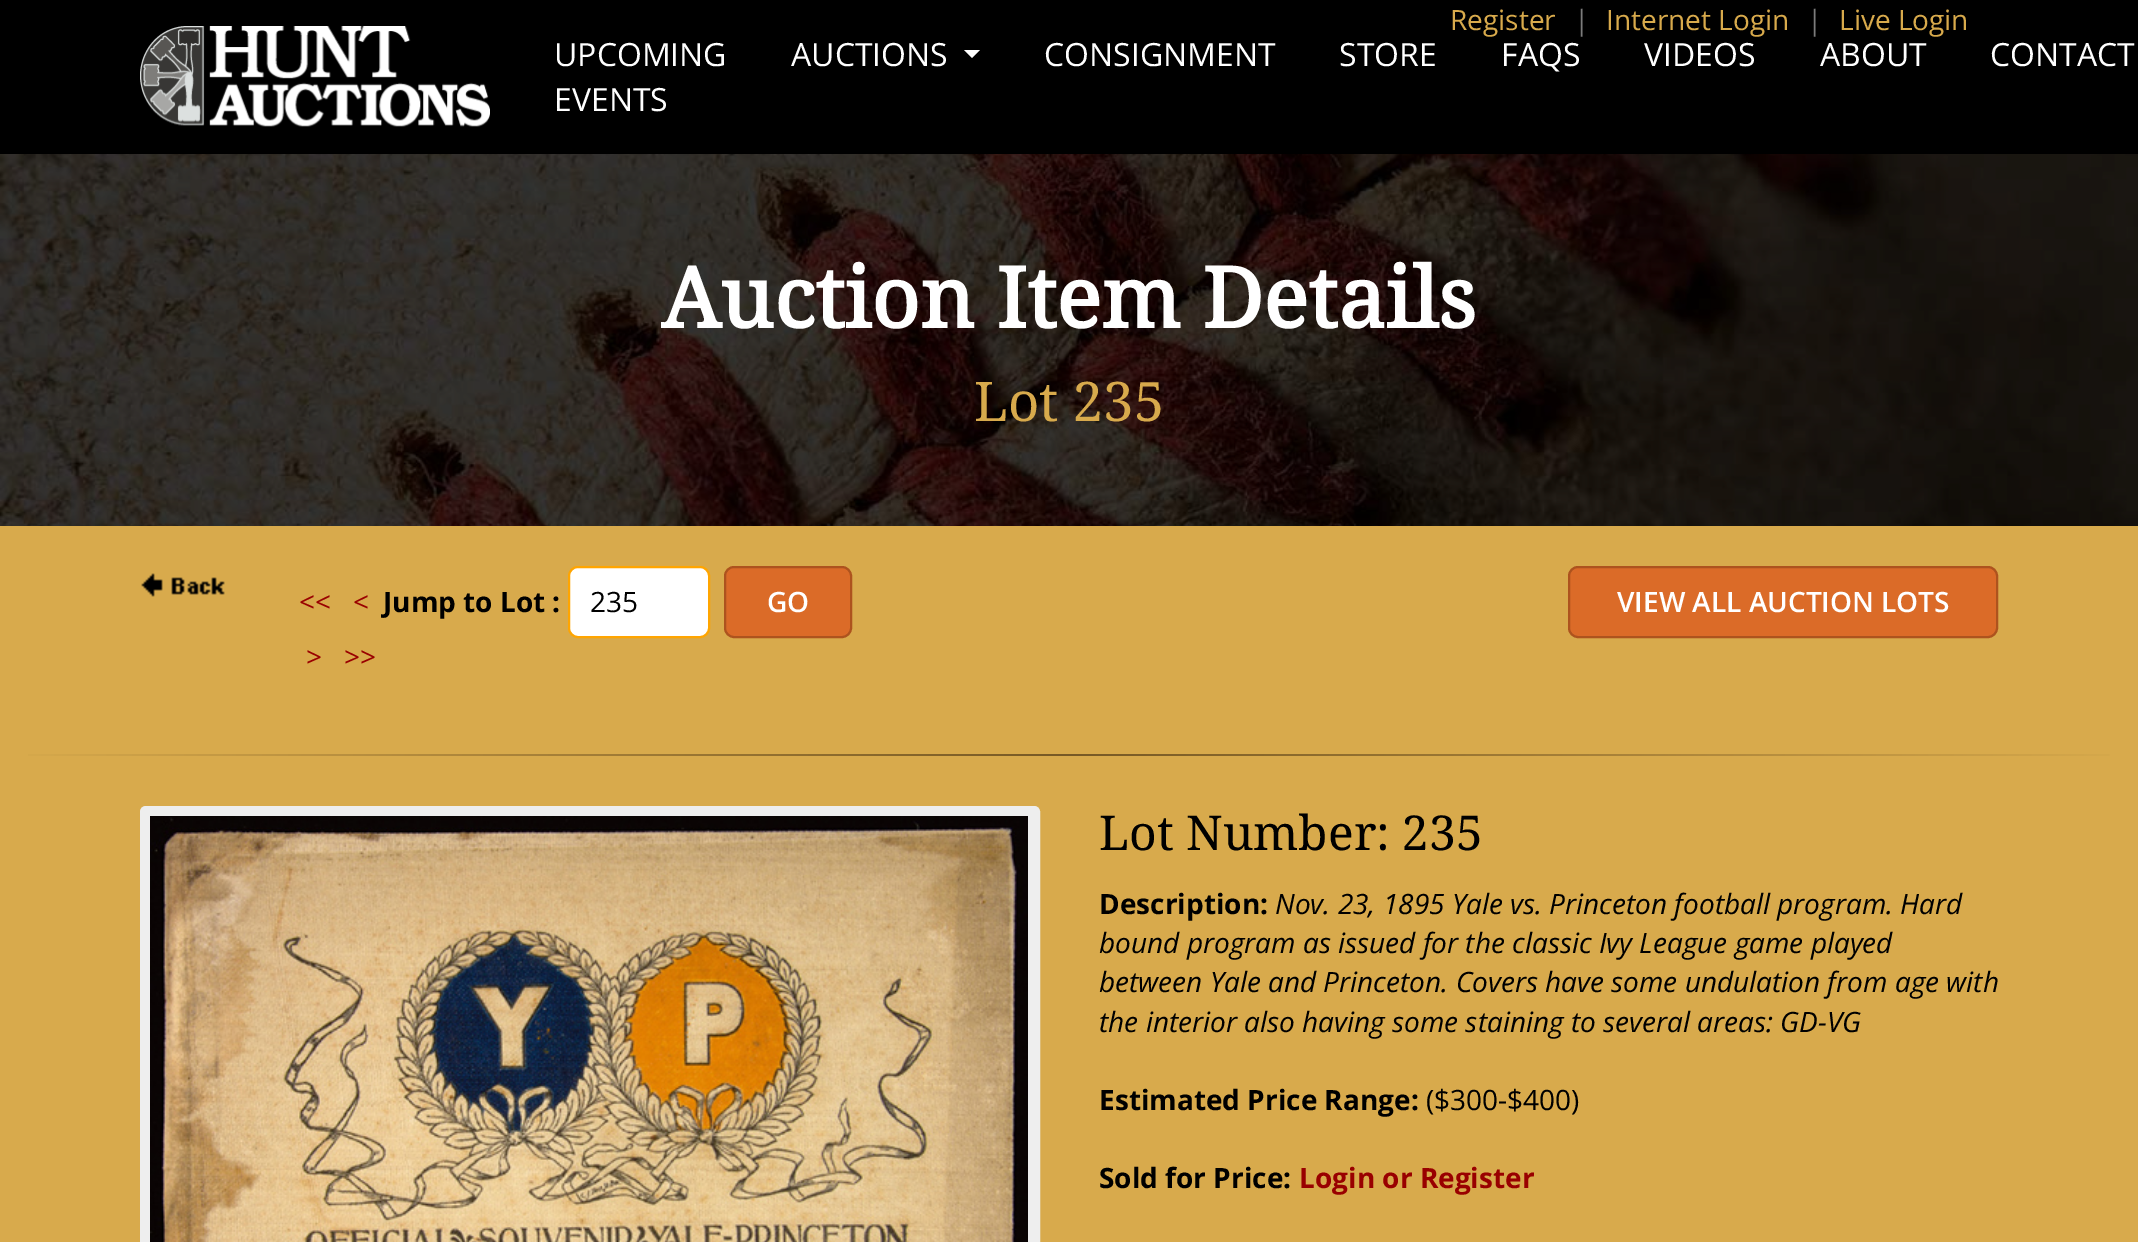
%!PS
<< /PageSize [2138 1242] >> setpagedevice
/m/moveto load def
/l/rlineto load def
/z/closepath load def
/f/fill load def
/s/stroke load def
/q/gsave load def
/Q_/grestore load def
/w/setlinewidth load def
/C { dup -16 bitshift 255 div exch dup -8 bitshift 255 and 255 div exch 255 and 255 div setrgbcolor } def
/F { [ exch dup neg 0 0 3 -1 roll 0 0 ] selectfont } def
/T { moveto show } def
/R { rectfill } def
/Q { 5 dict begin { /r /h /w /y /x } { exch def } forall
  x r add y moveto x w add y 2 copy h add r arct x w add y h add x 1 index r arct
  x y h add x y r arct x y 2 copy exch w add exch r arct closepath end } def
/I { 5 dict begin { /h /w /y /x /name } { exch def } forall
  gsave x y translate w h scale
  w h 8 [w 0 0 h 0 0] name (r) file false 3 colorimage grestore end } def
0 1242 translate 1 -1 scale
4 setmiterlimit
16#D8AA4C C
0 0 2138 1242 R
16#000000 C
0 0 2138 154 R
/OpenSans-Regular 28 F
16#D8AA4C C
(Register) 1450 30 T
16#7B7B7B C
(|) 1574 30 T
16#D8AA4C C
(Internet Login) 1606 30 T
16#7B7B7B C
(|) 1807 30 T
16#D8AA4C C
(Live Login) 1839 30 T
(1.rgb) 140 26 350 101 I
/OpenSans-Regular 32 F
16#FFFFFF C
(UPCOMING) 554 66 T
(EVENTS) 554 111 T
(AUCTIONS) 791 66 T
964 50 m 16 0 l -8 8 l z f
(CONSIGNMENT) 1044 66 T
(STORE) 1339 66 T
(FAQS) 1501 66 T
(VIDEOS) 1644 66 T
(ABOUT) 1820 66 T
(CONTACT) 1990 66 T
(2.rgb) 0 154 2138 372 I
/DroidSerif-Bold 84 F
(Auction Item Details) 661 328 T
/DroidSerif-Regular 54.5 F
16#D8AA4C C
(Lot 235) 974 421 T
(3.rgb) 141 573 84 24 I
/OpenSans-Regular 28 F
16#990000 C
(<<) 299 612 T
(<) 353 612 T
/OpenSans-Bold 28 F
16#000000 C
(Jump to Lot :) 383 612 T
16#FFFFFF C
569 567 140 70 9 Q q f Q_
16#FFA500 C
2 w
s
/OpenSans-Regular 28 F
16#000000 C
(235) 590 612 T
16#DB6B28 C
725 567 126 70 9 Q q f Q_
16#AD531E C
s
/OpenSans-SemiBold 28 F
16#FFFFFF C
(GO) 767 612 T
/OpenSans-Regular 28 F
16#990000 C
(>) 306 667 T
(>>) 344 667 T
16#DB6B28 C
1569 567 428 70 9 Q q f Q_
16#AD531E C
s
/OpenSans-SemiBold 28 F
16#FFFFFF C
(VIEW ALL AUCTION LOTS) 1617 612 T
q 28 754 m 2082 0 l 0 2 l -2082 0 l z clip newpath
<< /ShadingType 2 /ColorSpace /DeviceRGB /Coords [0 755 2138 755] /Extend [true true] /Function << /FunctionType 3 /Domain [0 1] /Functions [<< /FunctionType 2 /Domain [0 1] /C0 [.847 .667 .298] /C1 [.467 .349 .145] /N 1 >> << /FunctionType 2 /Domain [0 1] /C0 [.467 .349 .145] /C1 [.847 .667 .298] /N 1 >>] /Bounds [.5] /Encode [0 1 0 1] >> >> shfill Q_
16#EEEEEE C
145 811 890 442 1 Q q f Q_
10 w
s
(4.rgb) 150 816 878 426 I
/DroidSerif-Regular 48 F
16#000000 C
(Lot Number: 235) 1099 850 T
/OpenSans-Bold 28 F
(Description:) 1099 914 T
/OpenSans-Italic 28 F
(Nov. 23, 1895 Yale vs. Princeton football program. Hard) 1275 914 T
(bound program as issued for the classic Ivy League game played) 1099 953 T
(between Yale and Princeton. Covers have some undulation from age with) 1099 992 T
(the interior also having some staining to several areas: GD-VG) 1099 1032 T
/OpenSans-Bold 28 F
(Estimated Price Range:) 1099 1110 T
/OpenSans-Regular 28 F
(\($300-$400\)) 1426 1110 T
/OpenSans-Bold 28 F
(Sold for Price:) 1099 1188 T
16#990000 C
(Login or Register) 1299 1188 T
showpage
